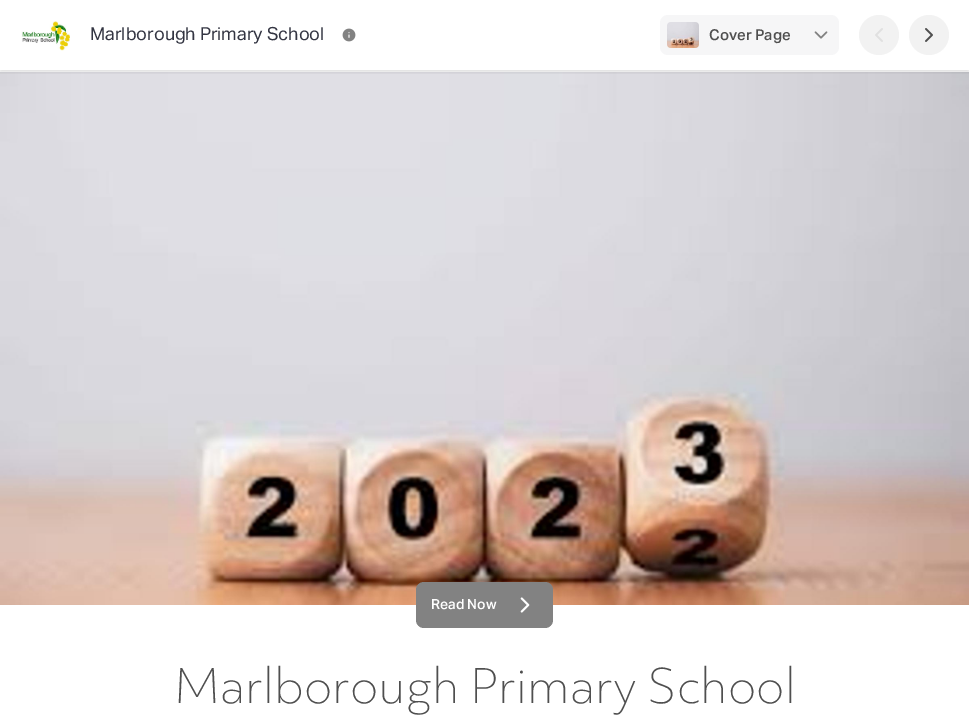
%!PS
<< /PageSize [969 721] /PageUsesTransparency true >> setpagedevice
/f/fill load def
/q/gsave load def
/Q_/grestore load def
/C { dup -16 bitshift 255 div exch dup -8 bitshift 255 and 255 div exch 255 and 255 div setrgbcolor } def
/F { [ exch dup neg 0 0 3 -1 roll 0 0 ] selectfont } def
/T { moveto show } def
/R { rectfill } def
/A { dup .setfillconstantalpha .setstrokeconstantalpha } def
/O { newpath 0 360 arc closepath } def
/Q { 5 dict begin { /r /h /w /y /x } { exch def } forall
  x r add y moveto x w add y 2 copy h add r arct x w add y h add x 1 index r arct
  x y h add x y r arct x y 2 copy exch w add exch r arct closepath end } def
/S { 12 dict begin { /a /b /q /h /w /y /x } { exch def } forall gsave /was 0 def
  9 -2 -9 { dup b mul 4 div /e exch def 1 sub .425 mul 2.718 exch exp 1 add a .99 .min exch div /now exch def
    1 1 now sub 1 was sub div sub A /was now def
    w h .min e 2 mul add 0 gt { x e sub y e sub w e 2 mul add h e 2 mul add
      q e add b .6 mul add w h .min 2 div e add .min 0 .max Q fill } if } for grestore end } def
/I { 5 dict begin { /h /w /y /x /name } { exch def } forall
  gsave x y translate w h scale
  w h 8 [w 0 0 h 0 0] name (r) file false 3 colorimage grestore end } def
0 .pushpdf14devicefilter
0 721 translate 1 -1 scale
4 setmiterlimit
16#FFFFFF C
0 0 969 721 R
(7.rgb) 0 72 969 533 I
q
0 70 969 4 rectclip
16#000000 C
0 2 969 70 0 2 .12 S
Q_
(1.rgb) 21 21 49 30 I
/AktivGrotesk-Regular 18 F
16#333542 C
(Marlborough Primary School) 90 40 T
(2.rgb) 342 28 14 14 I
16#F6F6F7 C
660 15 179 40 8 Q f
(3.rgb) 667 22 32 26 I
/AktivGrotesk-Medium 15 F
16#4F4F4F C
(Cover Page) 709 40 T
(4.rgb) 814 31 14 8 I
16#F2F2F2 C
879 35 20 O f
(5.rgb) 875 28 8 14 I
929 35 20 O f
(6.rgb) 925 28 8 14 I
16#828282 C
416 582 137 46 8 Q f
/AktivGrotesk-Medium 14 F
16#FFFFFF C
(Read Now) 431 609 T
(8.rgb) 520 597 10 16 I
/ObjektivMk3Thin-Thin 46 F
16#4F4F4F C
(Marlborough Primary School) 174 703 T
.poppdf14devicefilter showpage
